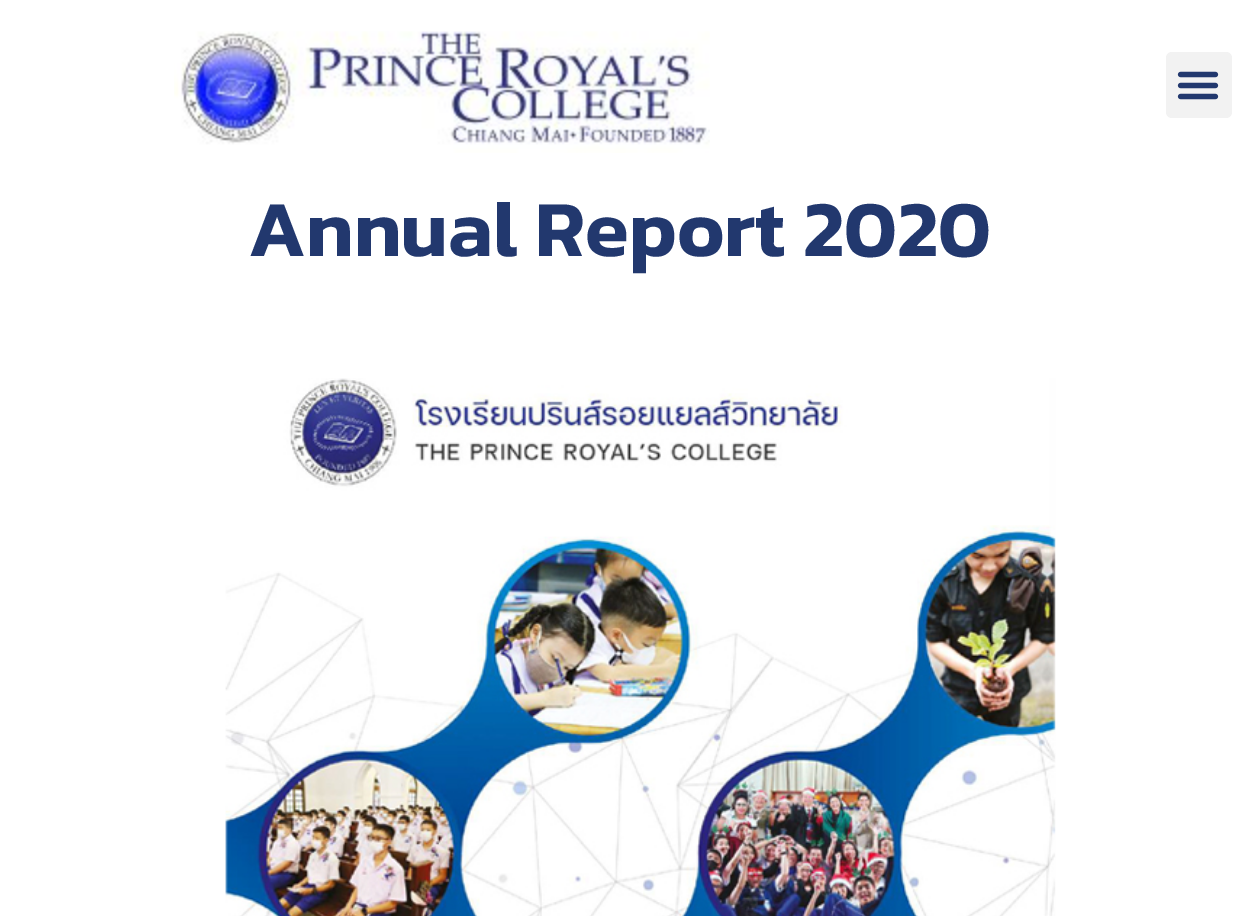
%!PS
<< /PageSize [1240 916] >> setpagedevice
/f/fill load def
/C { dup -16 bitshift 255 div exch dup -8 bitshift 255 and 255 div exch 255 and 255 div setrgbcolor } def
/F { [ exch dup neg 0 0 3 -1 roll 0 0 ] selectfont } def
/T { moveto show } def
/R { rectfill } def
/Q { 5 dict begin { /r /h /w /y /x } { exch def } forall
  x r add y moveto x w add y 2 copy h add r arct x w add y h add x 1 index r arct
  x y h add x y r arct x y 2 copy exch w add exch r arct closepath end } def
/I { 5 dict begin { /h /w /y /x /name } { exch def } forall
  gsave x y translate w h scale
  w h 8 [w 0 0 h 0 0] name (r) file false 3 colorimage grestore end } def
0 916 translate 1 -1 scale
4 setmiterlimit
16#FFFFFF C
0 0 1240 916 R
(1.rgb) 174 31 536 122 I
16#F2F2F2 C
1166 52 66 66 6 Q f
(2.rgb) 1177 71 42 29 I
/Kanit-SemiBold 80 F
16#22386E C
(Annual Report 2020) 248 256 T
(3.rgb) 225 378 831 538 I
showpage
